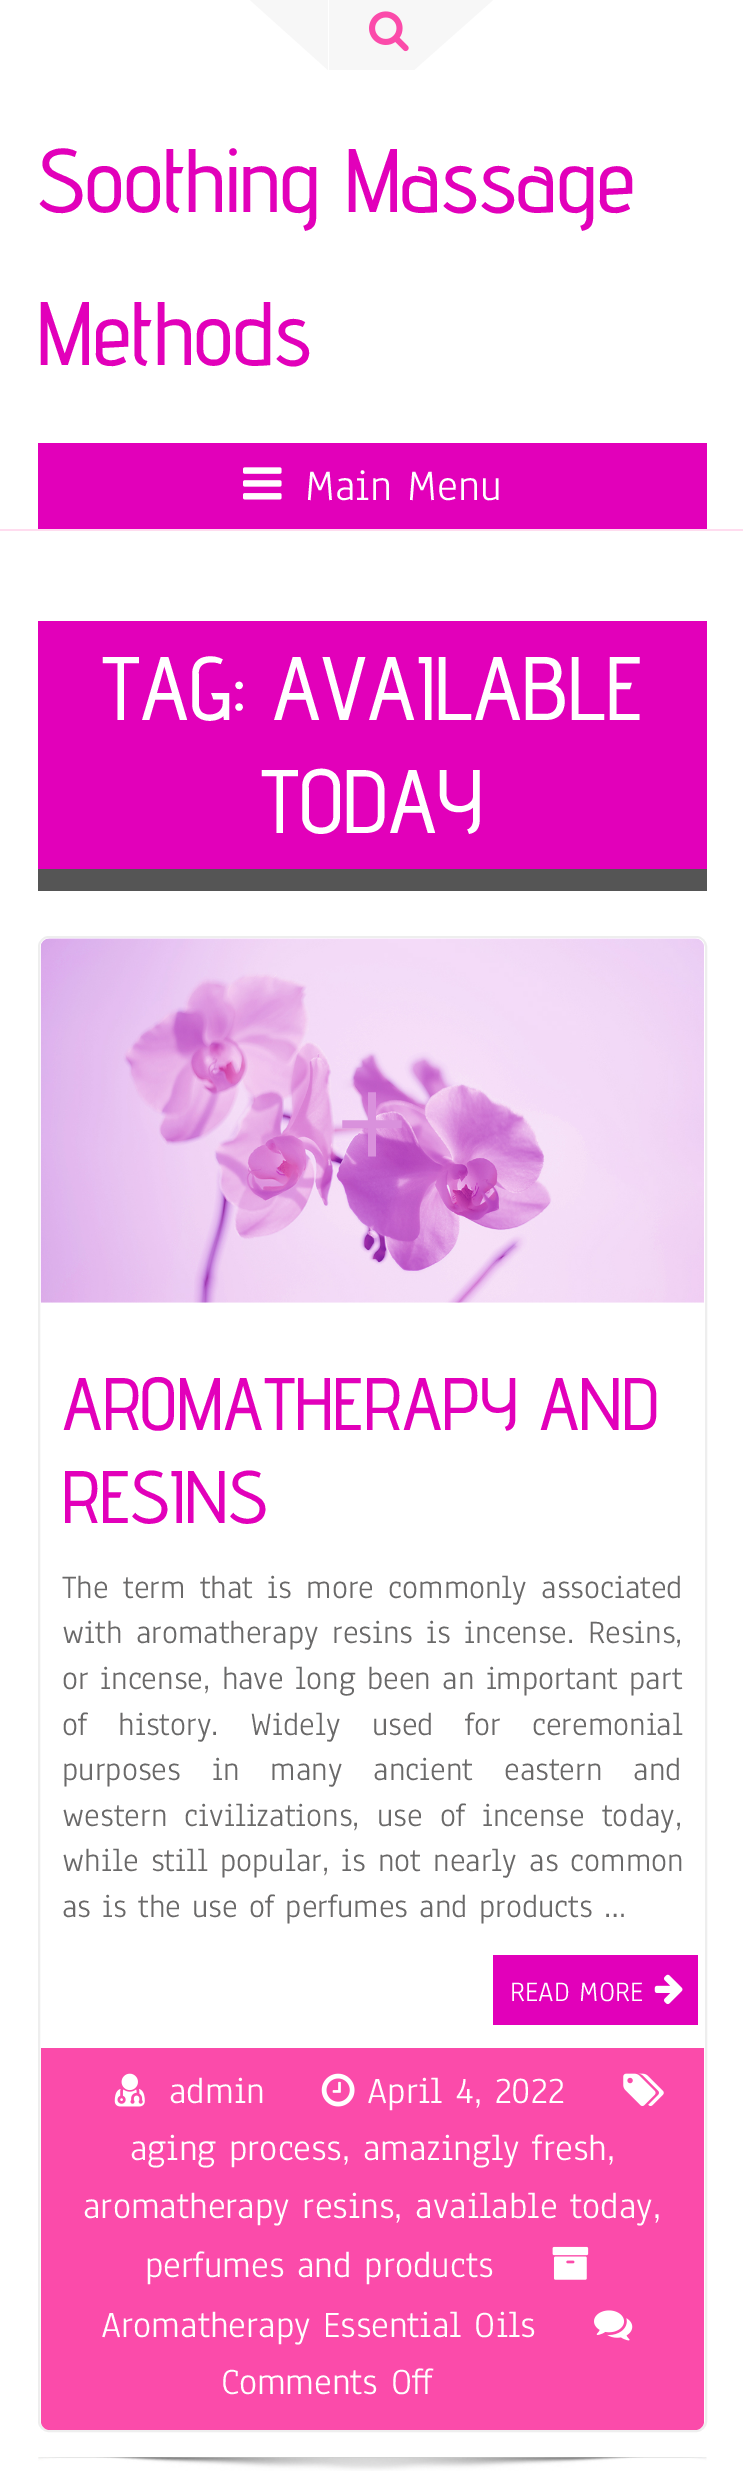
%!PS
<< /PageSize [743 2486] >> setpagedevice
/m/moveto load def
/l/rlineto load def
/c/rcurveto load def
/z/closepath load def
/f/fill load def
/s/stroke load def
/w/setlinewidth load def
/C { dup -16 bitshift 255 div exch dup -8 bitshift 255 and 255 div exch 255 and 255 div setrgbcolor } def
/F { [ exch dup neg 0 0 3 -1 roll 0 0 ] selectfont } def
/T { moveto show } def
/R { rectfill } def
/Q { 5 dict begin { /r /h /w /y /x } { exch def } forall
  x r add y moveto x w add y 2 copy h add r arct x w add y h add x 1 index r arct
  x y h add x y r arct x y 2 copy exch w add exch r arct closepath end } def
/I { 5 dict begin { /h /w /y /x /name } { exch def } forall
  gsave x y translate w h scale
  w h 8 [w 0 0 h 0 0] name (r) file false 3 colorimage grestore end } def
0 2486 translate 1 -1 scale
4 setmiterlimit
16#FFFFFF C
0 0 743 2486 R
16#FFDCEF C
0 529 743 2 R
16#F7F7F7 C
329 0 85 70 R
328 0 m 0 70 l -78 -70 l z f
(1.rgb) 369 11 40 41 I
414 0 m 79 0 l -79 70 l z f
/AdventPro-Medium 90 F
16#E200BA C
(Soothing Massage) 37 212 T
(Methods) 37 365 T
38 443 669 86 R
(2.rgb) 243 467 39 33 I
/Anaheim-Regular 45 F
16#FFFFFF C
(Main Menu) 305 500 T
16#E200BA C
38 621 669 248 R
/AdventPro-Medium 90 F
16#FFFFFF C
(TAG: AVAILABLE) 102 720 T
(TODAY) 261 833 T
16#555555 C
38 869 669 22 R
(3.rgb) 38 2457 669 14 I
16#EEEEEE C
2 w
39 937 667 1494 10 Q s
(4.rgb) 40 938 664 365 I
/Anaheim-Regular 158 F
16#D991DC C
(+) 333 1170 T
/AdventPro-Medium 74.25 F
16#E200BA C
(AROMATHERAPY AND) 62 1430 T
(RESINS) 62 1523 T
/Anaheim-Regular 33.75 F
16#6A6969 C
62 1598 m 3.25 0 32 (The term that is more commonly associated) widthshow
62 1643 m 2.25 0 32 (with aromatherapy resins is incense. Resins,) widthshow
62 1689 m .25 0 32 (or incense, have long been an important part) widthshow
62 1735 m 20 0 32 (of history. Widely used for ceremonial) widthshow
62 1780 m 20 0 32 (purposes in many ancient eastern and) widthshow
62 1826 m 6 0 32 (western civilizations, use of incense today,) widthshow
62 1871 m 1 0 32 (while still popular, is not nearly as common) widthshow
(as is the use of perfumes and products …) 62 1917 T
16#E200BA C
493 1955 205 70 R
/Anaheim-Regular 29.25 F
16#FFFFFF C
(READ MORE) 510 2001 T
(5.rgb) 654 1974 29 31 I
16#FB4BAA C
41 2048 m 663 0 l 0 373 l 0 5 -4 9 -9 9 c -645 0 l -5 0 -9 -4 -9 -9 c z f
(6.rgb) 114 2073 31 34 I
/Anaheim-Regular 38.25 F
16#FFFFFF C
(admin) 169 2103 T
(7.rgb) 321 2073 34 34 I
(April 4, 2022) 367 2103 T
(8.rgb) 623 2073 41 33 I
(aging process, amazingly fresh,) 130 2160 T
(aromatherapy resins, available today,) 83 2218 T
(perfumes and products) 145 2277 T
(9.rgb) 552 2246 37 34 I
(Aromatherapy Essential Oils) 101 2337 T
(10.rgb) 594 2310 39 31 I
(Comments Off) 221 2394 T
showpage
